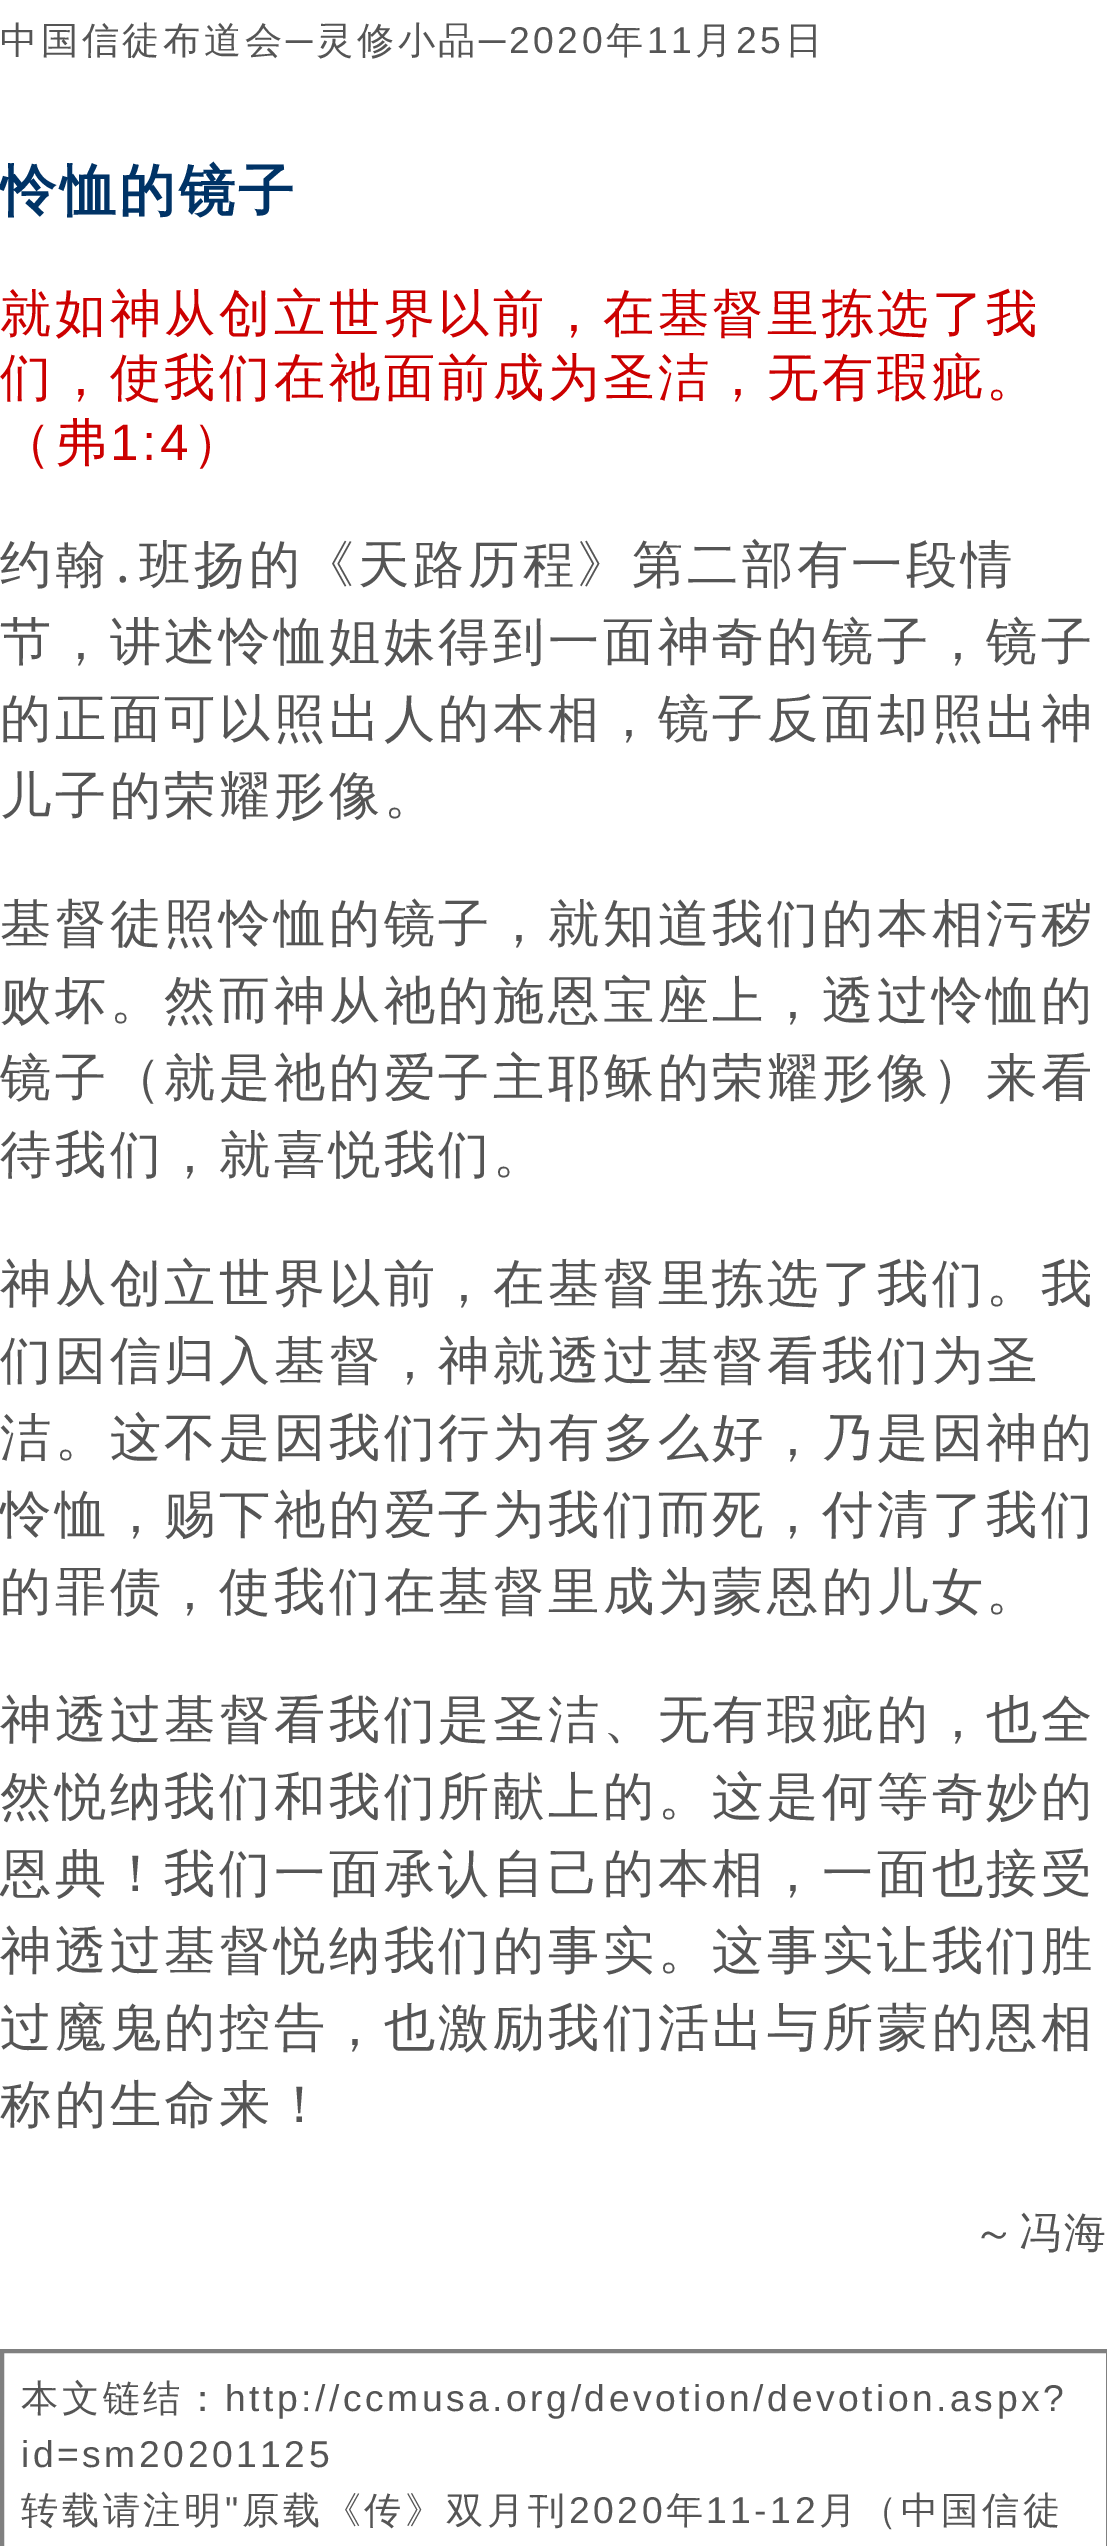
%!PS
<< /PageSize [1107 2546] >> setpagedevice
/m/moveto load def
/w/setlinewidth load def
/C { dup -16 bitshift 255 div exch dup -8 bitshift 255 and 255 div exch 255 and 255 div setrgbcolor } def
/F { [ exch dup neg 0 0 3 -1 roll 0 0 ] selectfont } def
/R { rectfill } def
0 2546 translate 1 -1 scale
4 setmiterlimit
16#FFFFFF C
0 0 1107 2546 R
/WenQuanYiZenHei-Medium 37.3 F
16#555555 C
0 53 m 3.5 0 (中国信徒布道会) ashow
/LiberationSans-Regular 37.3 F
286 53 m 3.5 0 (─) ashow
/WenQuanYiZenHei-Medium 37.3 F
316 53 m 3.5 0 (灵修小品) ashow
/LiberationSans-Regular 37.3 F
479 53 m 3.5 0 (─2020) ashow
/WenQuanYiZenHei-Medium 37.3 F
606 53 m 3.5 0 (年) ashow
/LiberationSans-Regular 37.3 F
647 53 m 3.5 0 (11) ashow
/WenQuanYiZenHei-Medium 37.3 F
695 53 m 3.5 0 (月) ashow
/LiberationSans-Regular 37.3 F
736 53 m 3.5 0 (25) ashow
/WenQuanYiZenHei-Medium 37.3 F
785 53 m 3.5 0 (日) ashow
/WenQuanYiZenHei-Bold 56 F
16#003366 C
0 210 m 3.5 0 (怜恤的镜子) ashow
/WenQuanYiZenHei-Medium 51.3 F
16#CC0000 C
0 331 m 3.5 0 (就如神从创立世界以前，在基督里拣选了我) ashow
0 395 m 3.5 0 (们，使我们在祂面前成为圣洁，无有瑕疵。) ashow
0 460 m 3.5 0 (（弗) ashow
/LiberationSans-Regular 51.3 F
110 460 m 3.5 0 (1:4) ashow
/WenQuanYiZenHei-Medium 51.3 F
192 460 m 3.5 0 (）) ashow
16#555555 C
0 582 m 3.5 0 (约翰) ashow
/NotoSans-Regular 51.3 F
110 582 m 3.5 0 (․) ashow
/WenQuanYiZenHei-Medium 51.3 F
139 582 m 3.5 0 (班扬的《天路历程》第二部有一段情) ashow
0 659 m 3.5 0 (节，讲述怜恤姐妹得到一面神奇的镜子，镜子) ashow
0 736 m 3.5 0 (的正面可以照出人的本相，镜子反面却照出神) ashow
0 813 m 3.5 0 (儿子的荣耀形像。) ashow
0 941 m 3.5 0 (基督徒照怜恤的镜子，就知道我们的本相污秽) ashow
0 1018 m 3.5 0 (败坏。然而神从祂的施恩宝座上，透过怜恤的) ashow
0 1095 m 3.5 0 (镜子（就是祂的爱子主耶稣的荣耀形像）来看) ashow
0 1172 m 3.5 0 (待我们，就喜悦我们。) ashow
0 1301 m 3.5 0 (神从创立世界以前，在基督里拣选了我们。我) ashow
0 1378 m 3.5 0 (们因信归入基督，神就透过基督看我们为圣) ashow
0 1455 m 3.5 0 (洁。这不是因我们行为有多么好，乃是因神的) ashow
0 1532 m 3.5 0 (怜恤，赐下祂的爱子为我们而死，付清了我们) ashow
0 1609 m 3.5 0 (的罪债，使我们在基督里成为蒙恩的儿女。) ashow
0 1737 m 3.5 0 (神透过基督看我们是圣洁、无有瑕疵的，也全) ashow
0 1814 m 3.5 0 (然悦纳我们和我们所献上的。这是何等奇妙的) ashow
0 1891 m 3.5 0 (恩典！我们一面承认自己的本相，一面也接受) ashow
0 1968 m 3.5 0 (神透过基督悦纳我们的事实。这事实让我们胜) ashow
0 2045 m 3.5 0 (过魔鬼的控告，也激励我们活出与所蒙的恩相) ashow
0 2122 m 3.5 0 (称的生命来！) ashow
/WenQuanYiZenHei-Medium 42 F
973 2247 m 3.5 0 (～冯海) ashow
16#808080 C
4 w
2 2351 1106 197 rectstroke
/WenQuanYiZenHei-Medium 37.3 F
16#555555 C
21 2411 m 3.5 0 (本文链结：) ashow
/LiberationSans-Regular 37.3 F
225 2411 m 3.5 0 (http://ccmusa.org/devotion/devotion.aspx?) ashow
21 2467 m 3.5 0 (id=sm20201125) ashow
/WenQuanYiZenHei-Medium 37.3 F
21 2523 m 3.5 0 (转载请注明) ashow
/LiberationSans-Regular 37.3 F
225 2523 m 3.5 0 (") ashow
/WenQuanYiZenHei-Medium 37.3 F
242 2523 m 3.5 0 (原载《传》双月刊) ashow
/LiberationSans-Regular 37.3 F
569 2523 m 3.5 0 (2020) ashow
/WenQuanYiZenHei-Medium 37.3 F
666 2523 m 3.5 0 (年) ashow
/LiberationSans-Regular 37.3 F
706 2523 m 3.5 0 (11-12) ashow
/WenQuanYiZenHei-Medium 37.3 F
819 2523 m 3.5 0 (月（中国信徒) ashow
showpage
